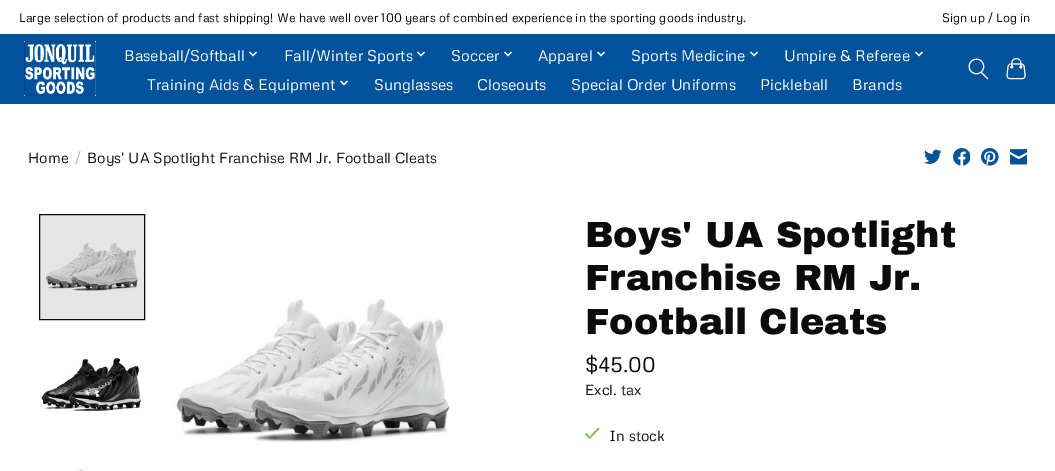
%!PS
<< /PageSize [1055 471] >> setpagedevice
/m/moveto load def
/l/rlineto load def
/s/stroke load def
/w/setlinewidth load def
/C { dup -16 bitshift 255 div exch dup -8 bitshift 255 and 255 div exch 255 and 255 div setrgbcolor } def
/F { [ exch dup neg 0 0 3 -1 roll 0 0 ] selectfont } def
/T { moveto show } def
/R { rectfill } def
/I { 5 dict begin { /h /w /y /x /name } { exch def } forall
  gsave x y translate w h scale
  w h 8 [w 0 0 h 0 0] name (r) file false 3 colorimage grestore end } def
0 471 translate 1 -1 scale
4 setmiterlimit
16#FFFFFF C
0 0 1055 471 R
16#E6E6E6 C
40 215 104 104 R
16#00529A C
0 34 1055 70 R
/Metrophobic-Regular 12.22 F
16#000000 C
(Large selection of products and fast shipping! We have well over 100 years of combined experience in the sporting goods industry.) 19 22 T
(Sign up / Log in) 942 22 T
(1.rgb) 24 41 72 55 I
/Metrophobic-Regular 15.4 F
16#FFFFFF C
(Baseball/Softball) 124 61 T
(2.rgb) 249 51 8 6 I
(Fall/Winter Sports) 284 61 T
(2.rgb) 417 51 8 6 I
(Soccer) 451 61 T
(2.rgb) 504 51 8 6 I
(Apparel) 538 61 T
(2.rgb) 597 51 8 6 I
(Sports Medicine) 631 61 T
(2.rgb) 750 51 8 6 I
(Umpire & Referee) 784 61 T
(2.rgb) 915 51 8 6 I
(Training Aids & Equipment) 147 90 T
(2.rgb) 340 80 8 6 I
(Sunglasses) 374 90 T
(Closeouts) 477 90 T
(Special Order Uniforms) 571 90 T
(Pickleball) 760 90 T
(Brands) 852 90 T
(3.rgb) 968 58 21 22 I
(4.rgb) 1006 58 20 22 I
/Metrophobic-Regular 14.7 F
16#0B0B0B C
(Home) 28 163 T
16#B6B6B6 C
(/) 75 163 T
16#0B0B0B C
(Boys' UA Spotlight Franchise RM Jr. Football Cleats) 87 163 T
(5.rgb) 924 149 18 15 I
(6.rgb) 953 148 17 18 I
(7.rgb) 981 148 18 18 I
(8.rgb) 1010 149 17 16 I
(9.rgb) 44 242 96 49 I
39.5 214.5 105 105 rectstroke
(10.rgb) 39 357 105 55 I
(11.rgb) 72 468 13 3 I
(12.rgb) 174 298 276 144 I
/ArchivoBlack-Black 36.5 F
(Boys' UA Spotlight) 585 247 T
(Franchise RM Jr.) 585 290 T
(Football Cleats) 585 334 T
/Metrophobic-Regular 21 F
($45.00) 585 372 T
/Metrophobic-Regular 14.7 F
(Excl. tax) 585 395 T
16#88C559 C
1.8 w
1 setlinecap
1 setlinejoin
586 434 m 3.5 4 l 9 -9.5 l s
16#0B0B0B C
(In stock) 609 441 T
showpage
